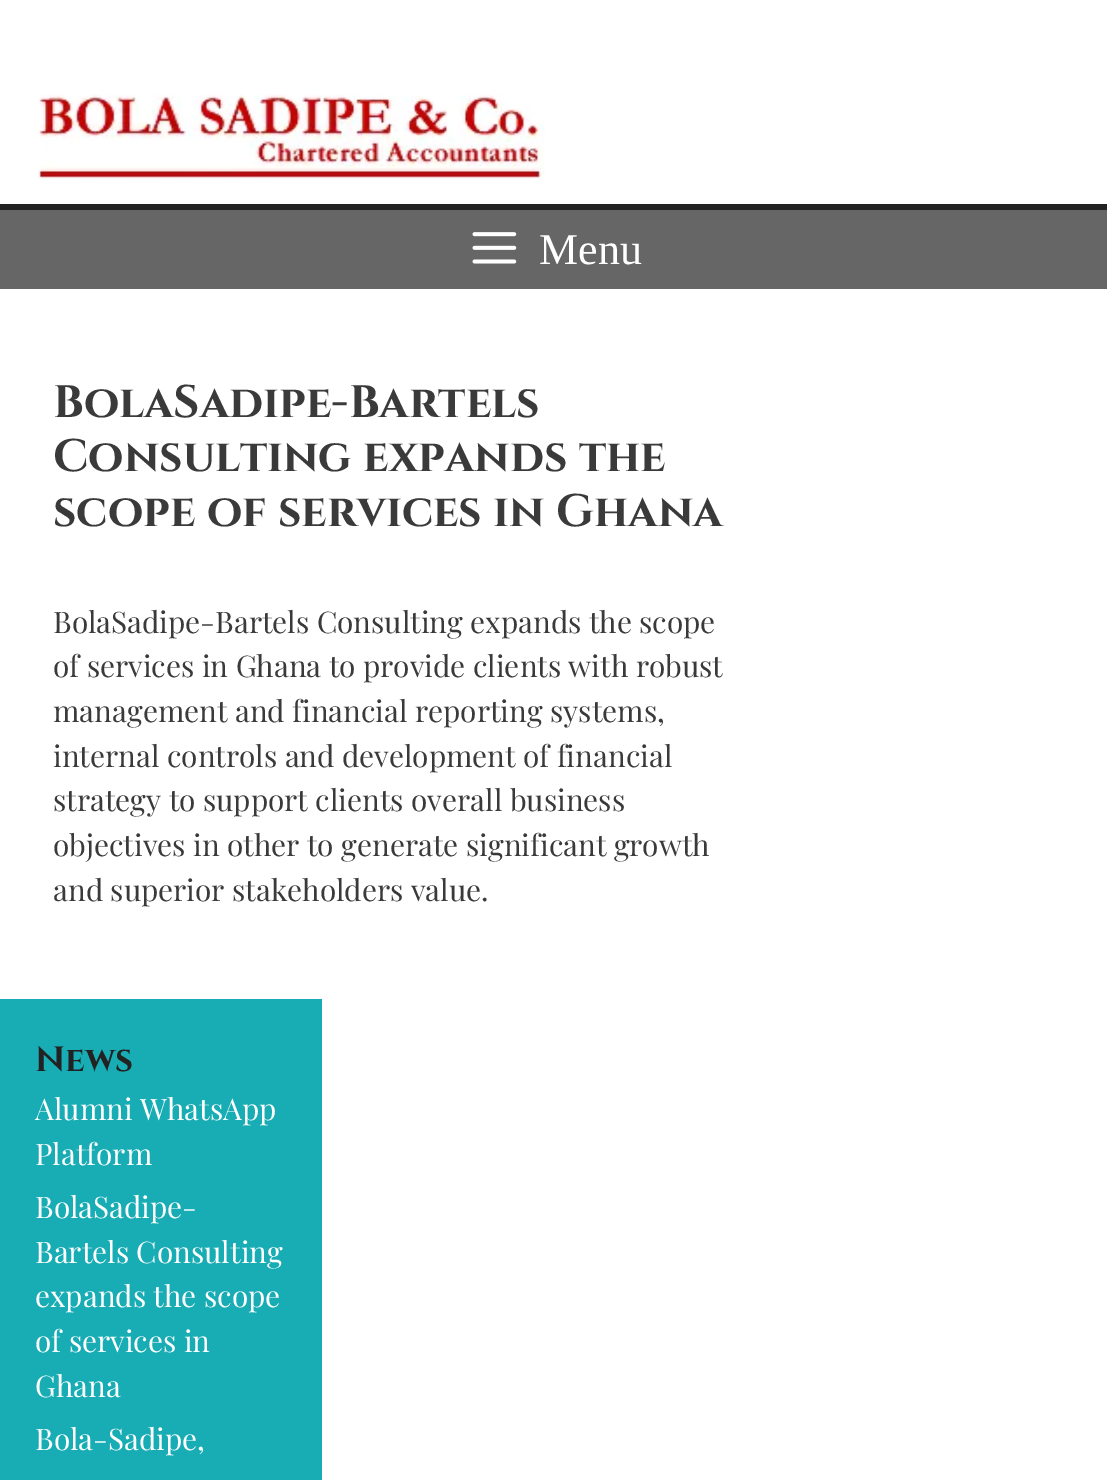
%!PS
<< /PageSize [1107 1480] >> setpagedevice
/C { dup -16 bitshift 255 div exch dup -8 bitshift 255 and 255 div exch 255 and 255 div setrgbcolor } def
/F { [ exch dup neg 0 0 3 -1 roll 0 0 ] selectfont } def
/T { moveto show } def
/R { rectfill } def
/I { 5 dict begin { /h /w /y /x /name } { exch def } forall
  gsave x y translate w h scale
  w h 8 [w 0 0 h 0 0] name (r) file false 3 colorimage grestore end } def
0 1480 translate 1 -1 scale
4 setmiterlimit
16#FFFFFF C
0 0 1107 1480 R
16#222222 C
0 204 1107 6 R
(1.rgb) 38 94 507 86 I
16#666666 C
0 210 1107 79 R
(2.rgb) 472 232 45 32 I
/LiberationSerif-Regular 44 F
16#FFFFFF C
(Menu) 539 264 T
/Cinzel-Bold 45.5 F
16#3A3A3A C
(BolaSadipe-Bartels) 53 417 T
(Consulting expands the) 53 471 T
(scope of services in Ghana) 53 526 T
/PlayfairDisplay-Regular 29.75 F
(BolaSadipe-Bartels Consulting expands the scope) 53 633 T
(of services in Ghana to provide clients with robust) 53 677 T
(management and financial reporting systems,) 53 722 T
(internal controls and development of financial) 53 767 T
(strategy to support clients overall business) 53 811 T
(objectives in other to generate significant growth) 53 856 T
(and superior stakeholders value.) 53 901 T
16#18ADB5 C
0 999 322 481 R
/Cinzel-Bold 35 F
16#222222 C
(News) 35 1071 T
/PlayfairDisplay-Regular 29.75 F
16#FFFFFF C
(Alumni WhatsApp) 35 1120 T
(Platform) 35 1165 T
(BolaSadipe-) 35 1218 T
(Bartels Consulting) 35 1263 T
(expands the scope) 35 1307 T
(of services in) 35 1352 T
(Ghana) 35 1397 T
(Bola-Sadipe,) 35 1450 T
showpage
